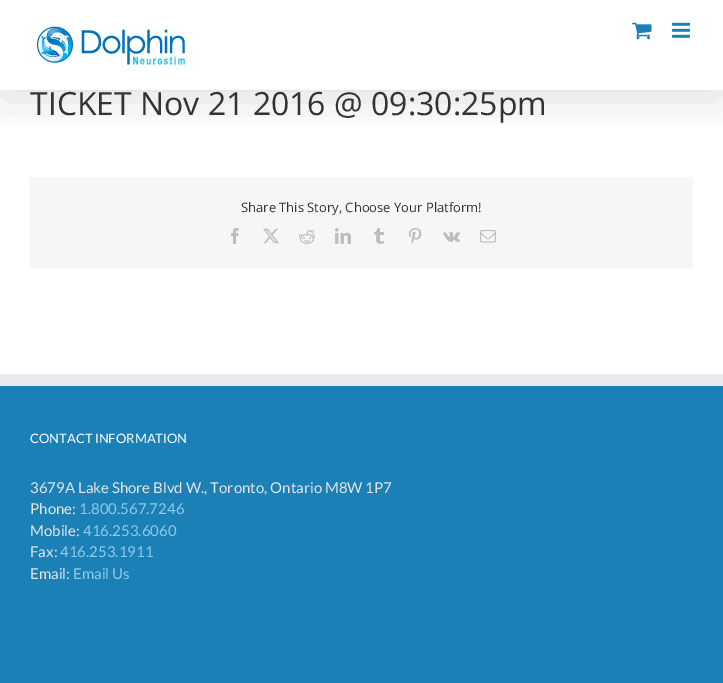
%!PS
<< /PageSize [723 683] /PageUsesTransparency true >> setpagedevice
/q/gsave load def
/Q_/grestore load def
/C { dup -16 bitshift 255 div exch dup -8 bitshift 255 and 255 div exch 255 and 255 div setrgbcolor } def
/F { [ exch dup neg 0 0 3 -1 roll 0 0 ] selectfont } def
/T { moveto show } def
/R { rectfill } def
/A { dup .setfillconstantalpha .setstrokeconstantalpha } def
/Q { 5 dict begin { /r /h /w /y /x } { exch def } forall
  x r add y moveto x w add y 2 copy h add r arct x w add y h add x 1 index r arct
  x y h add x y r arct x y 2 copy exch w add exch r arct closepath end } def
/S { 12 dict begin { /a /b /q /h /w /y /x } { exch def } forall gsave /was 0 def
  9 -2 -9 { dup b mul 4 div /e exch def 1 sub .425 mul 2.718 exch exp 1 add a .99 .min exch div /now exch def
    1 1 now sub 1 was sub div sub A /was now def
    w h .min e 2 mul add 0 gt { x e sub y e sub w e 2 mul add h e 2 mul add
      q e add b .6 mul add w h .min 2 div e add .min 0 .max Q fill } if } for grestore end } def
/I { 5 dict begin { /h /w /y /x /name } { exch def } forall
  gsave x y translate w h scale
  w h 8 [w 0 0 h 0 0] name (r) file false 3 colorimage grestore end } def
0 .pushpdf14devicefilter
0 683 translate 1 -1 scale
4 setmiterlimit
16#FFFFFF C
0 0 723 683 R
q
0 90 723 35 rectclip
16#000000 C
2 12 719 86 0 25 .14 S
Q_
(1.rgb) 37 26 148 39 I
(2.rgb) 632 22 20 18 I
(3.rgb) 672 22 18 16 I
/OpenSans-Regular 32 F
16#333333 C
(TICKET Nov 21 2016 @ 09:30:25pm) 30 115 T
16#F6F6F6 C
30 177 663 92 R
/OpenSans-Regular 13 F
16#333333 C
(Share This Story, Choose Your Platform!) 241 212 T
(4.rgb) 231 228 8 16 I
(5.rgb) 263 228 16 16 I
(6.rgb) 299 230 16 14 I
(7.rgb) 335 228 16 16 I
(8.rgb) 374 228 10 16 I
(9.rgb) 408 228 14 16 I
(10.rgb) 443 232 17 10 I
(11.rgb) 480 230 16 13 I
16#1A80B6 C
0 386 723 297 R
16#E9EAEE C
0 374 723 12 R
/Lato-Regular 13 F
16#FFFFFF C
(CONTACT INFORMATION) 30 443 T
/Lato-Regular 15 F
16#E3E3E3 C
(3679A Lake Shore Blvd W., Toronto, Ontario M8W 1P7) 30 493 T
(Phone:) 30 514 T
16#90C9E8 C
(1.800.567.7246) 79 514 T
16#E3E3E3 C
(Mobile:) 30 536 T
16#90C9E8 C
(416.253.6060) 83 536 T
16#E3E3E3 C
(Fax:) 30 557 T
16#90C9E8 C
(416.253.1911) 60 557 T
16#E3E3E3 C
(Email:) 30 579 T
16#90C9E8 C
(Email Us) 73 579 T
.poppdf14devicefilter showpage
